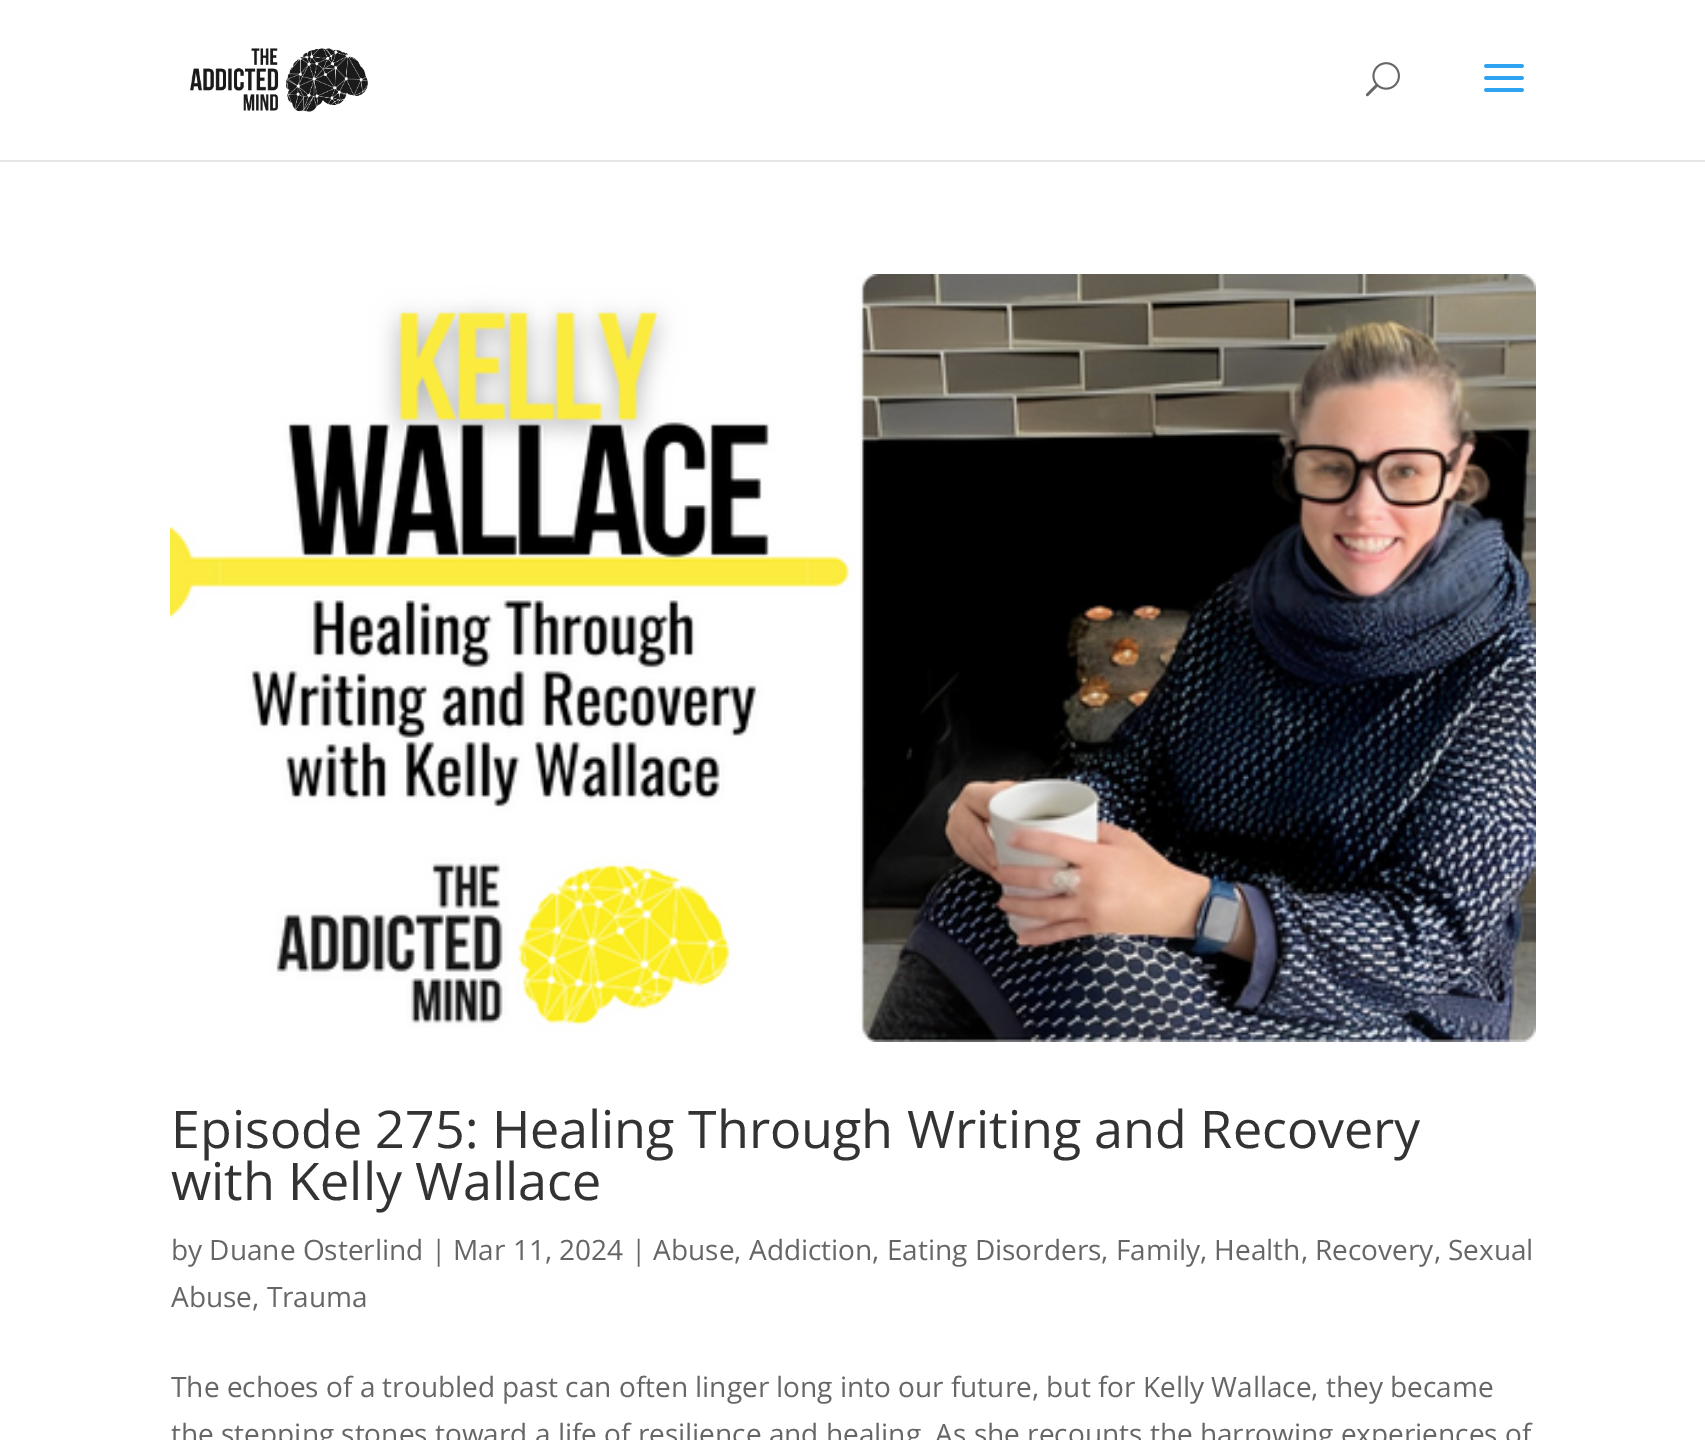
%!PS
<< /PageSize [1705 1440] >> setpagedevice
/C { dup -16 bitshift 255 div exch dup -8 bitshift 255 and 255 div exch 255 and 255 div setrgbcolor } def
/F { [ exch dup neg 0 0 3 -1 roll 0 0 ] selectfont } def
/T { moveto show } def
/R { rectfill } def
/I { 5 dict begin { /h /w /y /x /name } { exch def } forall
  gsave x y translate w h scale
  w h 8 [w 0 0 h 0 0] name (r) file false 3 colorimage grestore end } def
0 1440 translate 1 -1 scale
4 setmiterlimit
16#FFFFFF C
0 0 1705 1440 R
16#E6E6E6 C
0 160 1705 2 R
(1.rgb) 190 48 179 64 I
(2.rgb) 1365 62 35 35 I
(3.rgb) 1484 64 40 28 I
(4.rgb) 170 274 1366 768 I
/OpenSans-Regular 52 F
16#333333 C
(Episode 275: Healing Through Writing and Recovery) 171 1148 T
(with Kelly Wallace) 171 1200 T
/OpenSans-Regular 28 F
16#666666 C
(by Duane Osterlind | Mar 11, 2024 | Abuse, Addiction, Eating Disorders, Family, Health, Recovery, Sexual) 171 1260 T
(Abuse, Trauma) 171 1307 T
(The echoes of a troubled past can often linger long into our future, but for Kelly Wallace, they became) 171 1397 T
(the stepping stones toward a life of resilience and healing. As she recounts the harrowing experiences of) 171 1444 T
showpage
